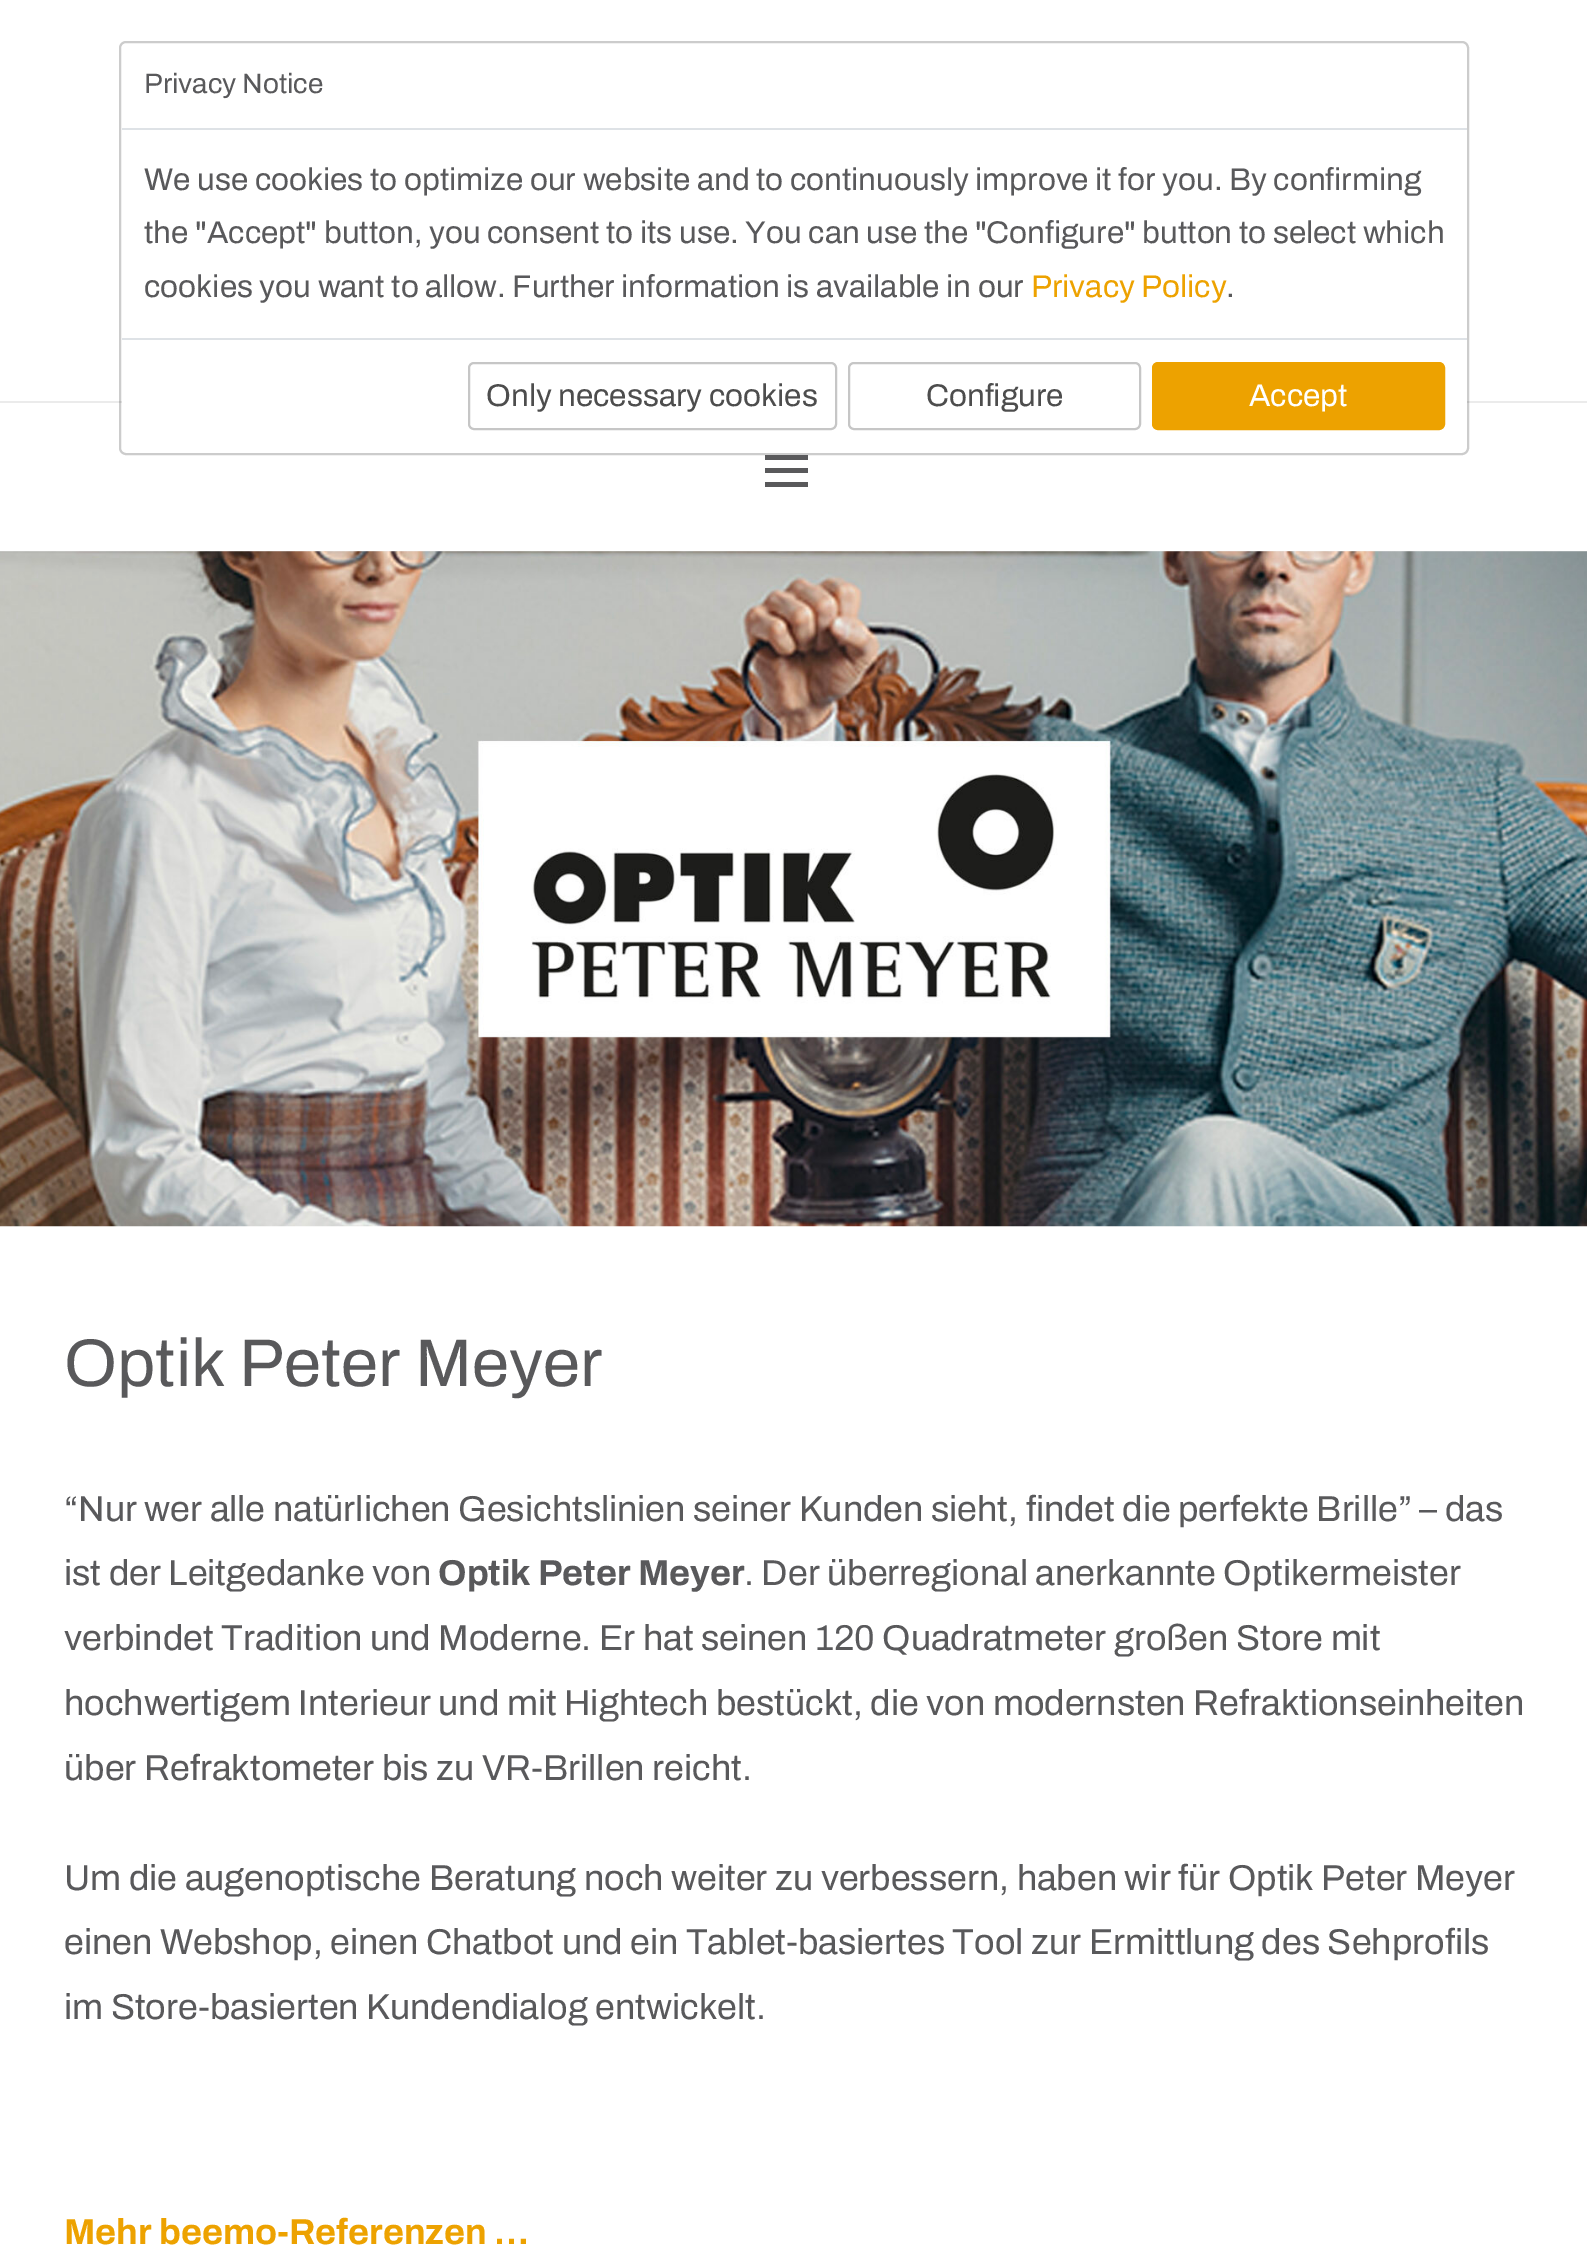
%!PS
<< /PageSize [1587 2261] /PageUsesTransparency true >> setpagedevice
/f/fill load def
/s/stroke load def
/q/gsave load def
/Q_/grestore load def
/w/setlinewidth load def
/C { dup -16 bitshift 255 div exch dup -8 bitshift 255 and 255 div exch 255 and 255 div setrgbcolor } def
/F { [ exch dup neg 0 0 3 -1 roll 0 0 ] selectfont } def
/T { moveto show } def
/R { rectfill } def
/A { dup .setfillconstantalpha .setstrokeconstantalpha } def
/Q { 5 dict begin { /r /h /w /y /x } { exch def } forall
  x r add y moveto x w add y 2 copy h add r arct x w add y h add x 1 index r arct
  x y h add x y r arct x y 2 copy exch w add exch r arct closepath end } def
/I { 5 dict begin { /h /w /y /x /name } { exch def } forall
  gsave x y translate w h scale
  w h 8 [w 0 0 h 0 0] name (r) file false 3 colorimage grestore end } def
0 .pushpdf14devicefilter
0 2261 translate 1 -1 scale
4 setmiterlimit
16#FFFFFF C
0 0 1587 2261 R
16#EBEBEB C
0 401 1587 2 R
16#FFFFFF C
122 43 1345 409 5 Q f
0.2 A
16#000000 C
2 w
120 42 1348 412 6 Q s
1 A
16#DEE2E6 C
122 128 1345 2 R
/Archivo-Regular 28 F
16#59595B C
(Privacy Notice) 144 93 T
/Archivo-Regular 31.5 F
(We use cookies to optimize our website and to continuously improve it for you. By confirming) 144 190 T
(the "Accept" button, you consent to its use. You can use the "Configure" button to select which) 144 243 T
(cookies you want to allow. Further information is available in our) 144 297 T
16#EDA200 C
(Privacy Policy) 1031 297 T
16#59595B C
(.) 1226 297 T
16#DEE2E6 C
122 338 1345 2 R
16#C6C6C6 C
469 363 367 66 5 Q s
16#4D4D4D C
(Only necessary cookies) 486 406 T
16#C6C6C6 C
849 363 291 66 5 Q s
16#4D4D4D C
(Configure) 926 406 T
16#EDA200 C
1153 363 291 66 5 Q q f Q_
s
16#FFFFFF C
(Accept) 1249 406 T
16#59595B C
765 455 43 5 R
765 468 43 5 R
765 482 43 5 R
(1.rgb) 0 551 1587 676 I
/Archivo-Regular 67.5 F
(Optik Peter Meyer) 64 1386 T
/Archivo-Regular 36 F
(“Nur wer alle natürlichen Gesichtslinien seiner Kunden sieht, findet die perfekte Brille” – das) 64 1521 T
(ist der Leitgedanke von) 64 1585 T
/Archivo-Bold 36 F
(Optik Peter Meyer) 438 1585 T
/Archivo-Regular 36 F
(. Der überregional anerkannte Optikermeister) 744 1585 T
(verbindet Tradition und Moderne. Er hat seinen 120 Quadratmeter großen Store mit) 64 1650 T
(hochwertigem Interieur und mit Hightech bestückt, die von modernsten Refraktionseinheiten) 64 1715 T
(über Refraktometer bis zu VR-Brillen reicht.) 64 1780 T
(Um die augenoptische Beratung noch weiter zu verbessern, haben wir für Optik Peter Meyer) 64 1890 T
(einen Webshop, einen Chatbot und ein Tablet-basiertes Tool zur Ermittlung des Sehprofils) 64 1954 T
(im Store-basierten Kundendialog entwickelt.) 64 2019 T
/Archivo-Bold 36 F
16#EDA200 C
(Mehr beemo-Referenzen …) 64 2244 T
.poppdf14devicefilter showpage
